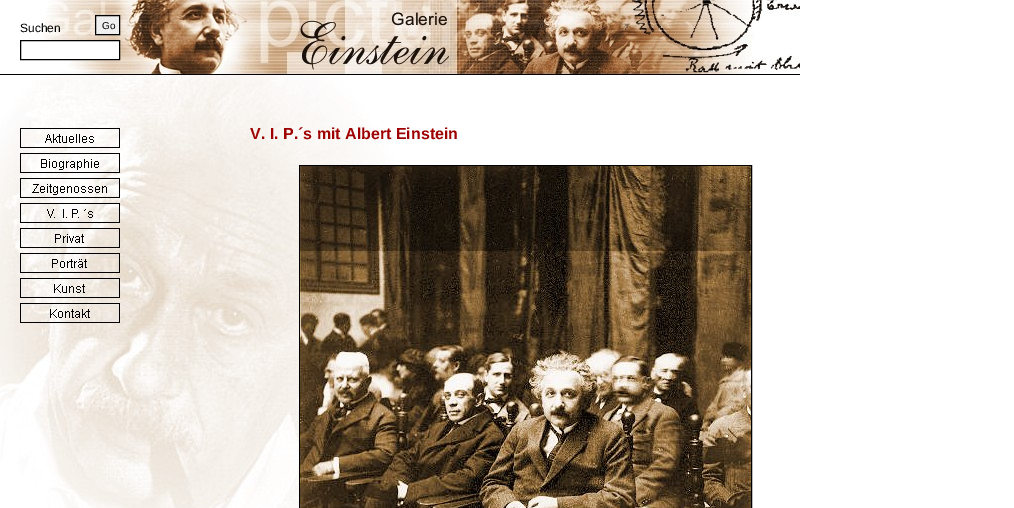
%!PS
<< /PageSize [1014 508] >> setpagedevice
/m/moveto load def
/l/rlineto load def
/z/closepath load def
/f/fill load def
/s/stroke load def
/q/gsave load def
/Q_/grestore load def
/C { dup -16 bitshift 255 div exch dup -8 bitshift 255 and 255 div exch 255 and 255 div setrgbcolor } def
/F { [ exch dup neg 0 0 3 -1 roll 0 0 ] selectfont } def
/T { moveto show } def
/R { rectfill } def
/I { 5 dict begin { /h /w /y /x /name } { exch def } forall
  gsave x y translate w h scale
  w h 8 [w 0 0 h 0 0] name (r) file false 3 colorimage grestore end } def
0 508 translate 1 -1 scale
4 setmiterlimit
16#FFFFFF C
0 0 1014 508 R
(1.rgb) 0 75 416 433 I
(2.rgb) 0 0 800 75 I
/LiberationSans-Regular 12 F
16#000000 C
(Suchen) 20 32 T
16#EFEFEF C
95.5 15.5 m 24 0 l 0 19 l -24 0 l z q f Q_
16#000000 C
s
/LiberationSans-Regular 10 F
(Go) 102 29 T
16#FFFFFF C
42 41 77 18 R
16#000000 C
20.5 40.5 99 19 rectstroke
(3.rgb) 20 128 100 20 I
(4.rgb) 20 153 100 20 I
(5.rgb) 20 178 100 20 I
(6.rgb) 20 203 100 20 I
(7.rgb) 20 228 100 20 I
(8.rgb) 20 253 100 20 I
(9.rgb) 20 278 100 20 I
(10.rgb) 20 303 100 20 I
/LiberationSans-Bold 16 F
16#9F0000 C
(V. I. P.´s mit Albert Einstein) 250 139 T
16#000000 C
299.5 165.5 452 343 rectstroke
(11.rgb) 300 166 451 342 I
showpage
